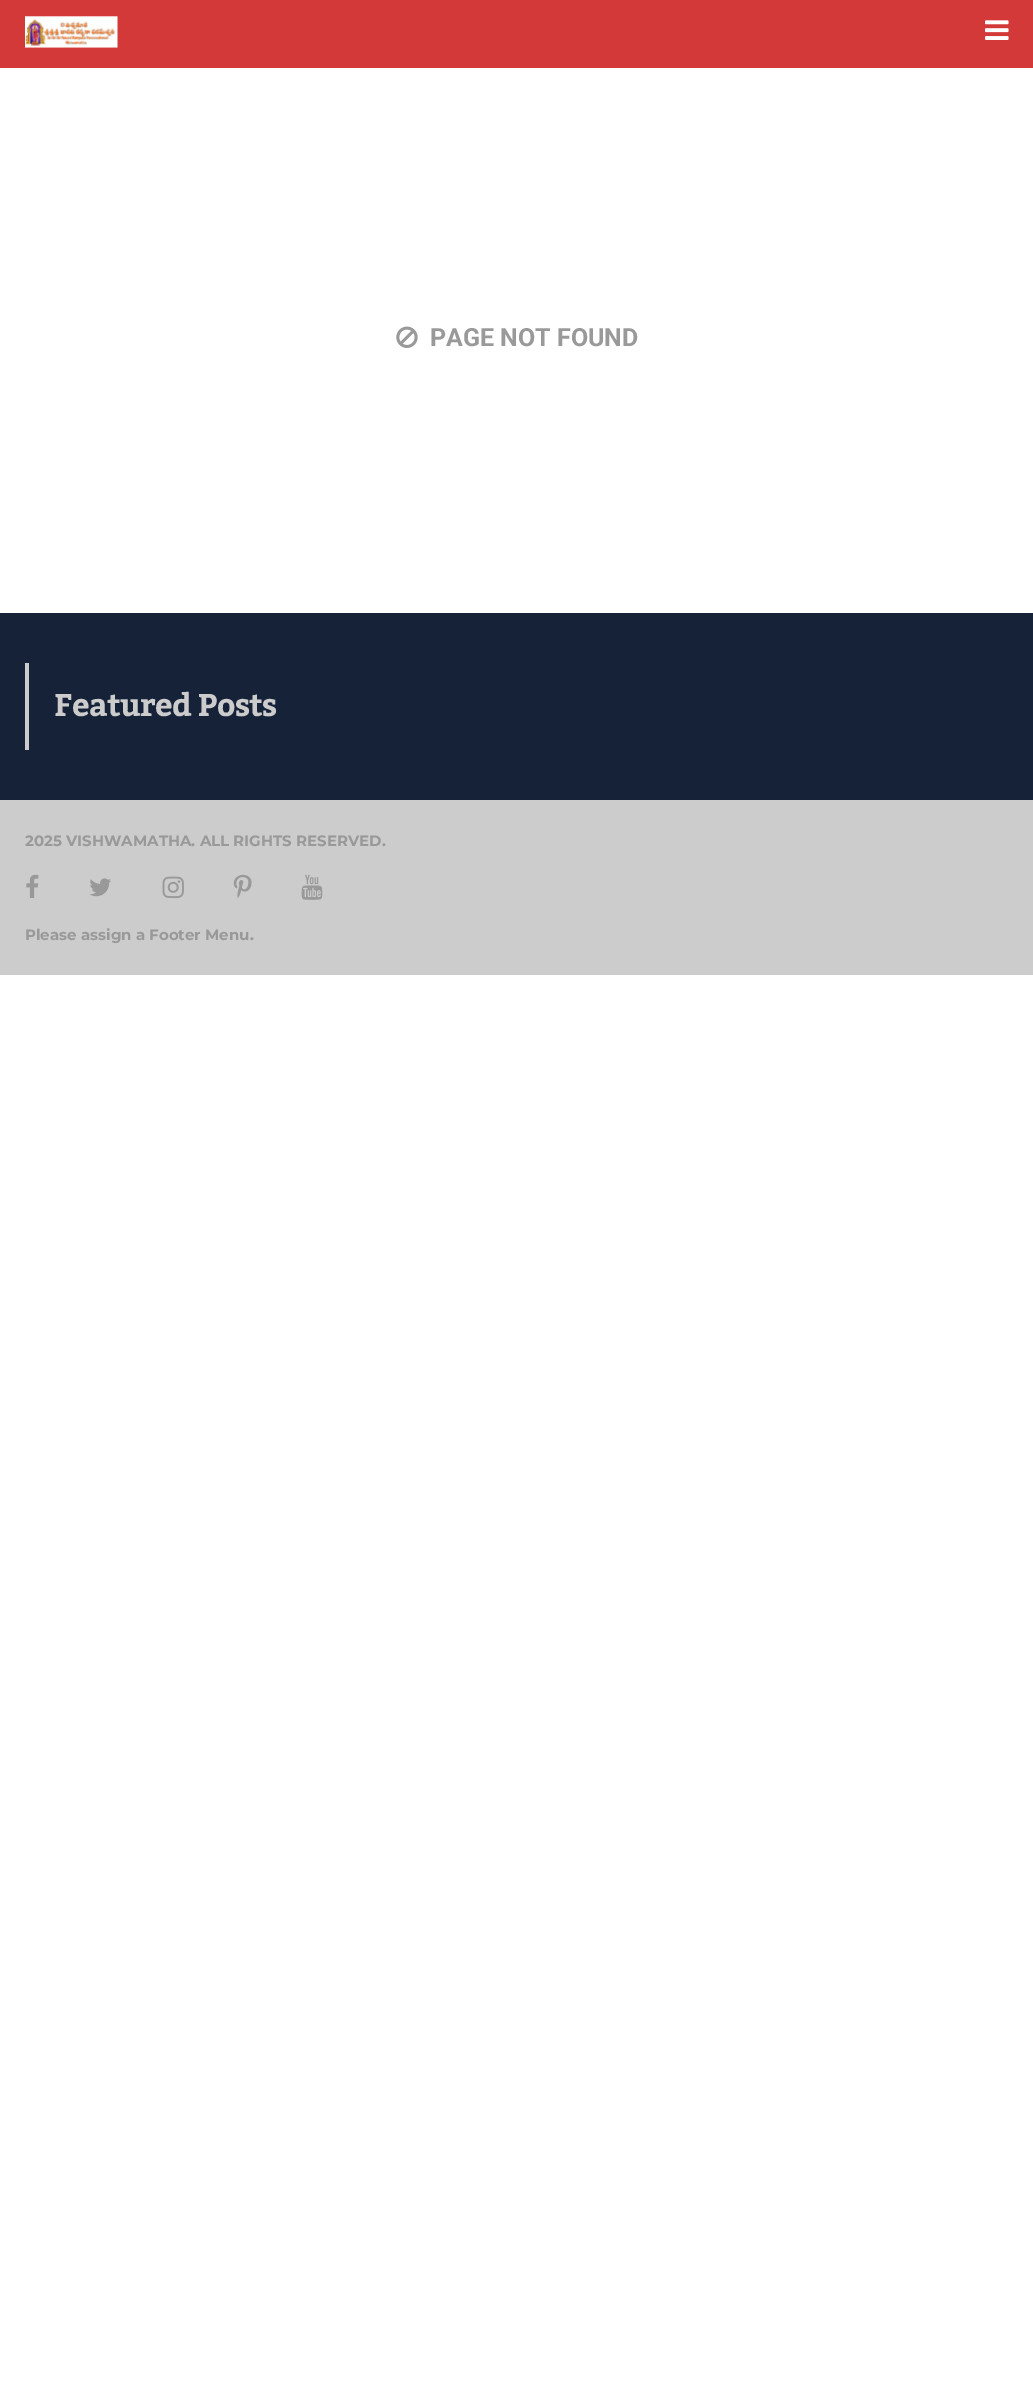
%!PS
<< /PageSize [1033 2399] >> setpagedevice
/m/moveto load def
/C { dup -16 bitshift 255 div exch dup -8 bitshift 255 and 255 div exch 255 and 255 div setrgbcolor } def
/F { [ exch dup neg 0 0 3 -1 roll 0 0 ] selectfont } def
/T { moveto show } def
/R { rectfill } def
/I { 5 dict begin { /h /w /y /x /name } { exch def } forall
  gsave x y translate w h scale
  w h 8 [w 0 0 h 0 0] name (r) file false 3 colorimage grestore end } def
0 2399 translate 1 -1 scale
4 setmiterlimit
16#FFFFFF C
0 0 1033 2399 R
16#D43939 C
0 0 1033 68 R
(1.rgb) 25 16 93 32 I
(2.rgb) 985 20 24 20 I
(3.rgb) 396 326 22 22 I
/Roboto-Bold 25 F
16#999999 C
(PAGE NOT FOUND) 430 346 T
16#162238 C
0 613 1033 187 R
16#CCCCCC C
25 663 4 87 R
/Kadwa-Bold 31.25 F
54 716 m -.6 0 (Featured Posts) ashow
0 800 1033 175 R
/Montserrat-Bold 15 F
16#999999 C
(2025 VISHWAMATHA. ALL RIGHTS RESERVED.) 25 846 T
(4.rgb) 26 874 13 24 I
(5.rgb) 89 878 22 19 I
(6.rgb) 162 876 22 22 I
(7.rgb) 233 874 19 24 I
(8.rgb) 301 874 22 26 I
(Please assign a Footer Menu.) 25 940 T
showpage
